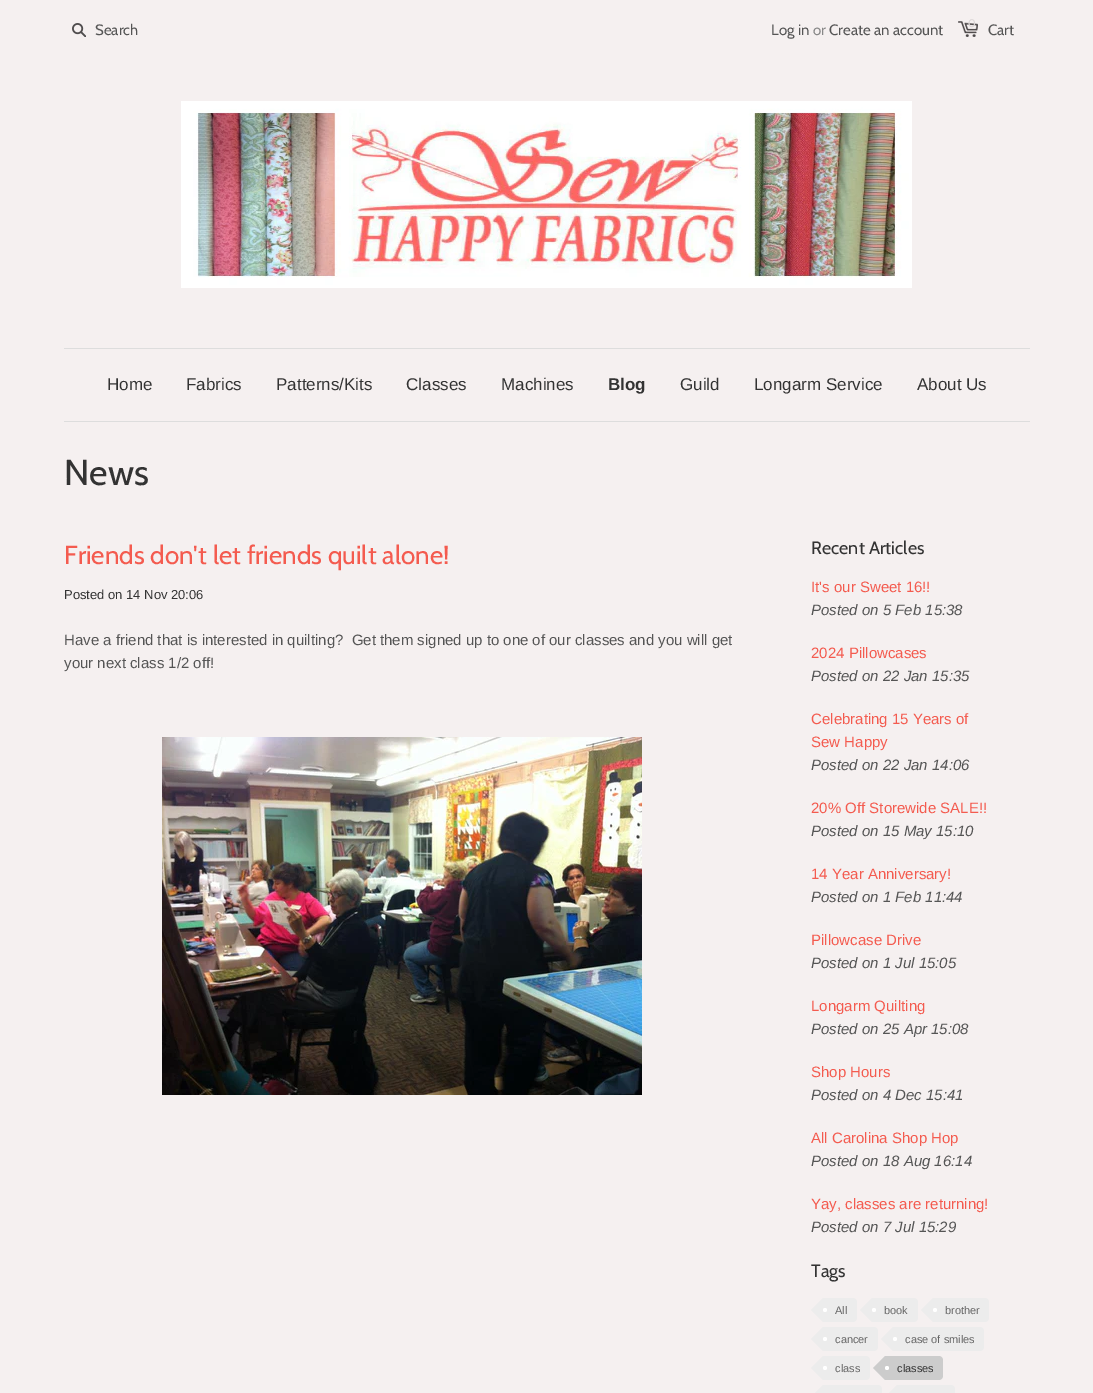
%!PS
<< /PageSize [1093 1393] >> setpagedevice
/m/moveto load def
/l/rlineto load def
/c/rcurveto load def
/z/closepath load def
/f/fill load def
/C { dup -16 bitshift 255 div exch dup -8 bitshift 255 and 255 div exch 255 and 255 div setrgbcolor } def
/F { [ exch dup neg 0 0 3 -1 roll 0 0 ] selectfont } def
/T { moveto show } def
/R { rectfill } def
/O { newpath 0 360 arc closepath } def
/I { 5 dict begin { /h /w /y /x /name } { exch def } forall
  gsave x y translate w h scale
  w h 8 [w 0 0 h 0 0] name (r) file false 3 colorimage grestore end } def
0 1393 translate 1 -1 scale
4 setmiterlimit
16#F5F0F0 C
0 0 1093 1393 R
(1.rgb) 72 23 14 14 I
/Cabin-Regular 15 F
16#555555 C
(Search) 95 35 T
(Log in) 771 35 T
16#888888 C
(or) 813 35 T
16#555555 C
(Create an account) 829 35 T
(2.rgb) 958 21 20 16 I
/Cabin-Regular 11 F
16#DAD5D5 C
(0) 968 27 T
/Cabin-Regular 15 F
16#555555 C
(Cart) 988 35 T
(3.rgb) 181 101 731 187 I
16#DDDDDD C
64 348 966 1 R
64 421 966 1 R
/LiberationSans-Regular 17 F
16#333333 C
(Home) 107 390 T
(Fabrics) 186 390 T
(Patterns/Kits) 276 390 T
(Classes) 406 390 T
(Machines) 501 390 T
/LiberationSans-Bold 17 F
(Blog) 608 390 T
/LiberationSans-Regular 17 F
(Guild) 680 390 T
(Longarm Service) 754 390 T
(About Us) 917 390 T
/Cabin-Regular 36 F
(News) 64 485 T
/Cabin-Regular 26 F
16#F45B4F C
(Friends don't let friends quilt alone!) 64 564 T
/LiberationSans-Regular 13 F
16#333333 C
(Posted on 14 Nov 20:06) 64 599 T
/LiberationSans-Regular 15 F
16#555555 C
(Have a friend that is interested in quilting?  Get them signed up to one of our classes and you will get) 64 645 T
(your next class 1/2 off!) 64 668 T
(4.rgb) 162 737 480 358 I
/Cabin-Regular 18 F
16#333333 C
(Recent Articles) 811 554 T
/LiberationSans-Regular 15 F
16#F45B4F C
(It's our Sweet 16!!) 811 592 T
/LiberationSans-Italic 15 F
16#555555 C
(Posted on 5 Feb 15:38) 811 615 T
/LiberationSans-Regular 15 F
16#F45B4F C
(2024 Pillowcases) 811 658 T
/LiberationSans-Italic 15 F
16#555555 C
(Posted on 22 Jan 15:35) 811 681 T
/LiberationSans-Regular 15 F
16#F45B4F C
(Celebrating 15 Years of) 811 724 T
(Sew Happy) 811 747 T
/LiberationSans-Italic 15 F
16#555555 C
(Posted on 22 Jan 14:06) 811 770 T
/LiberationSans-Regular 15 F
16#F45B4F C
(20% Off Storewide SALE!!) 811 813 T
/LiberationSans-Italic 15 F
16#555555 C
(Posted on 15 May 15:10) 811 836 T
/LiberationSans-Regular 15 F
16#F45B4F C
(14 Year Anniversary!) 811 879 T
/LiberationSans-Italic 15 F
16#555555 C
(Posted on 1 Feb 11:44) 811 902 T
/LiberationSans-Regular 15 F
16#F45B4F C
(Pillowcase Drive) 811 945 T
/LiberationSans-Italic 15 F
16#555555 C
(Posted on 1 Jul 15:05) 811 968 T
/LiberationSans-Regular 15 F
16#F45B4F C
(Longarm Quilting) 811 1011 T
/LiberationSans-Italic 15 F
16#555555 C
(Posted on 25 Apr 15:08) 811 1034 T
/LiberationSans-Regular 15 F
16#F45B4F C
(Shop Hours) 811 1077 T
/LiberationSans-Italic 15 F
16#555555 C
(Posted on 4 Dec 15:41) 811 1100 T
/LiberationSans-Regular 15 F
16#F45B4F C
(All Carolina Shop Hop) 811 1143 T
/LiberationSans-Italic 15 F
16#555555 C
(Posted on 18 Aug 16:14) 811 1166 T
/LiberationSans-Regular 15 F
16#F45B4F C
(Yay, classes are returning!) 811 1209 T
/LiberationSans-Italic 15 F
16#555555 C
(Posted on 7 Jul 15:29) 811 1232 T
/Cabin-Regular 18 F
16#333333 C
(Tags) 811 1277 T
16#ECECEC C
823 1298 m 30 0 l 2 0 4 2 4 4 c 0 16 l 0 2 -2 4 -4 4 c -30 0 l z f
823 1298 m 0 24 l -12 -12 l z f
16#FFFFFF C
825 1310 2 O f
/LiberationSans-Regular 11 F
16#666666 C
(All) 835 1314 T
16#ECECEC C
872 1298 m 42 0 l 2 0 4 2 4 4 c 0 16 l 0 2 -2 4 -4 4 c -42 0 l z f
872 1298 m 0 24 l -12 -12 l z f
16#FFFFFF C
874 1310 2 O f
16#666666 C
(book) 884 1314 T
16#ECECEC C
933 1298 m 52 0 l 2 0 4 2 4 4 c 0 16 l 0 2 -2 4 -4 4 c -52 0 l z f
933 1298 m 0 24 l -12 -12 l z f
16#FFFFFF C
935 1310 2 O f
16#666666 C
(brother) 945 1314 T
16#ECECEC C
823 1327 m 51 0 l 2 0 4 2 4 4 c 0 16 l 0 2 -2 4 -4 4 c -51 0 l z f
823 1327 m 0 24 l -12 -12 l z f
16#FFFFFF C
825 1339 2 O f
16#666666 C
(cancer) 835 1343 T
16#ECECEC C
893 1327 m 87 0 l 2 0 4 2 4 4 c 0 16 l 0 2 -2 4 -4 4 c -87 0 l z f
893 1327 m 0 24 l -12 -12 l z f
16#FFFFFF C
895 1339 2 O f
16#666666 C
(case of smiles) 905 1343 T
16#ECECEC C
823 1356 m 43 0 l 2 0 4 2 4 4 c 0 16 l 0 2 -2 4 -4 4 c -43 0 l z f
823 1356 m 0 24 l -12 -12 l z f
16#FFFFFF C
825 1368 2 O f
16#666666 C
(class) 835 1372 T
16#CCCCCC C
885 1356 m 54 0 l 2 0 4 2 4 4 c 0 16 l 0 2 -2 4 -4 4 c -54 0 l z f
885 1356 m 0 24 l -12 -12 l z f
16#FFFFFF C
887 1368 2 O f
16#333333 C
(classes) 897 1372 T
16#ECECEC C
823 1385 m 55 0 l 2 0 4 2 4 4 c 0 4 l 0 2 -2 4 -4 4 c -55 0 l z f
823 1385 m 0 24 l -12 -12 l z f
897 1385 m 54 0 l 2 0 4 2 4 4 c 0 4 l 0 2 -2 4 -4 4 c -54 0 l z f
897 1385 m 0 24 l -12 -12 l z f
showpage
